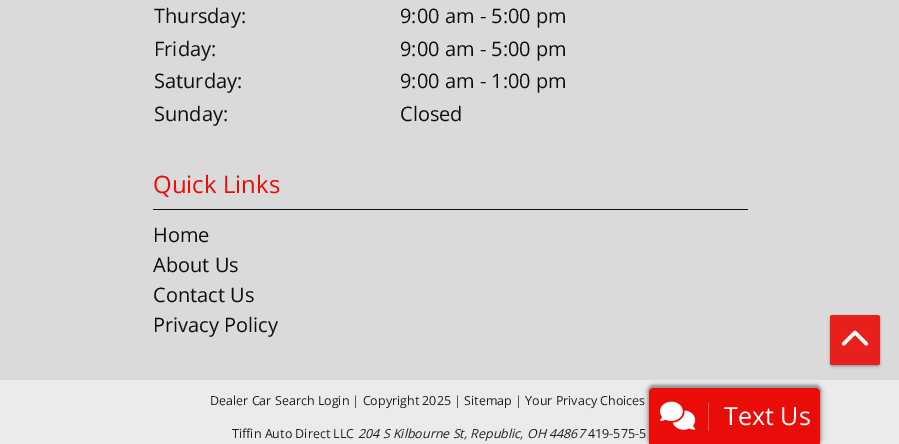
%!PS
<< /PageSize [899 444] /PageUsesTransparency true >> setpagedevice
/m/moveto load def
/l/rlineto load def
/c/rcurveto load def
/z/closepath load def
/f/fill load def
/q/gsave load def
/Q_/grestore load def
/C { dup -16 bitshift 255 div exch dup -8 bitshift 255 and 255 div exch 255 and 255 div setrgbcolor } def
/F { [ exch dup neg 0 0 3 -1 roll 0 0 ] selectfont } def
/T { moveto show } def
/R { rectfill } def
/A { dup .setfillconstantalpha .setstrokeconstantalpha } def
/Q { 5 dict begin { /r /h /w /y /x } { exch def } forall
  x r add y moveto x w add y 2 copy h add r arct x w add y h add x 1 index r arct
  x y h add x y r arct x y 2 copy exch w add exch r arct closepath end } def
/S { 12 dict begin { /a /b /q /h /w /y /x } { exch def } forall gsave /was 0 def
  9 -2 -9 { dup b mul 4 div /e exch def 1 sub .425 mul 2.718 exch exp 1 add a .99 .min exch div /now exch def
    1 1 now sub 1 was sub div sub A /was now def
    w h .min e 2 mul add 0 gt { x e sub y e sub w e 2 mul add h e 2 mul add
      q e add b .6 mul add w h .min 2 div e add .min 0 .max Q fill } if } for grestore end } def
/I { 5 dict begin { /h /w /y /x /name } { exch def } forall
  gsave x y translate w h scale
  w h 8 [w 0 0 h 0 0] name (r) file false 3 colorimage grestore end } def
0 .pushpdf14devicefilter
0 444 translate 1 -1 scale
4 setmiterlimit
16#DADADA C
0 0 899 444 R
/OpenSans-Regular 20 F
16#0E0E0E C
(Thursday:) 154 23 T
(9:00 am - 5:00 pm) 400 23 T
(Friday:) 154 56 T
(9:00 am - 5:00 pm) 400 56 T
(Saturday:) 154 88 T
(9:00 am - 1:00 pm) 400 88 T
(Sunday:) 154 121 T
(Closed) 400 121 T
153 209 595 1 R
/OpenSans-Regular 24 F
16#E90C08 C
(Quick Links) 153 193 T
/OpenSans-Regular 20 F
16#0E0E0E C
(Home) 153 242 T
(About Us) 153 272 T
(Contact Us) 153 302 T
(Privacy Policy) 153 332 T
16#EBEBEB C
0 380 899 64 R
/OpenSans-Regular 12.5 F
16#1F1F1F C
(Dealer Car Search Login | Copyright 2025 | Sitemap | Your Privacy Choices) 210 405 T
(Tiffin Auto Direct LLC) 232 438 T
/OpenSans-Italic 12.5 F
(204 S Kilbourne St, Republic, OH 44867) 358 438 T
/OpenSans-Regular 12.5 F
(419-575-5) 588 438 T
q
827 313 m 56 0 l 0 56 l -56 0 l z 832.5 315 m 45 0 l 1.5 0 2.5 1 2.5 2.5 c 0 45 l 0 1.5 -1 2.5 -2.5 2.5 c -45 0 l -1.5 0 -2.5 -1 -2.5 -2.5 c 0 -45 l 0 -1.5 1 -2.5 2.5 -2.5 c z eoclip newpath
16#000000 C
830 316 50 50 2.5 .5 .2 S
Q_
q
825 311 m 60 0 l 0 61 l -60 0 l z 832.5 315 m 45 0 l 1.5 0 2.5 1 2.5 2.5 c 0 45 l 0 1.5 -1 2.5 -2.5 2.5 c -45 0 l -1.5 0 -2.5 -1 -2.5 -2.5 c 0 -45 l 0 -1.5 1 -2.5 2.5 -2.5 c z eoclip newpath
16#000000 C
829 315 52 53 4 1 .1 S
Q_
0.9 A
16#E90C08 C
830 315 50 50 2.5 Q f
1 A
(1.rgb) 841 330 28 16 I
16#000000 C
648 385 173 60 6 1 .25 S
646 384 177 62 8 2 .15 S
16#E90C08 C
654 388 m 161 0 l 3 0 5 2 5 5 c 0 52 l -171 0 l 0 -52 l 0 -3 2 -5 5 -5 c z f
16#F05552 C
708 403 1 28 R
(2.rgb) 660 401 36 29 I
/OpenSans-Regular 25 F
16#FFFFFF C
(Text Us) 724 425 T
.poppdf14devicefilter showpage
